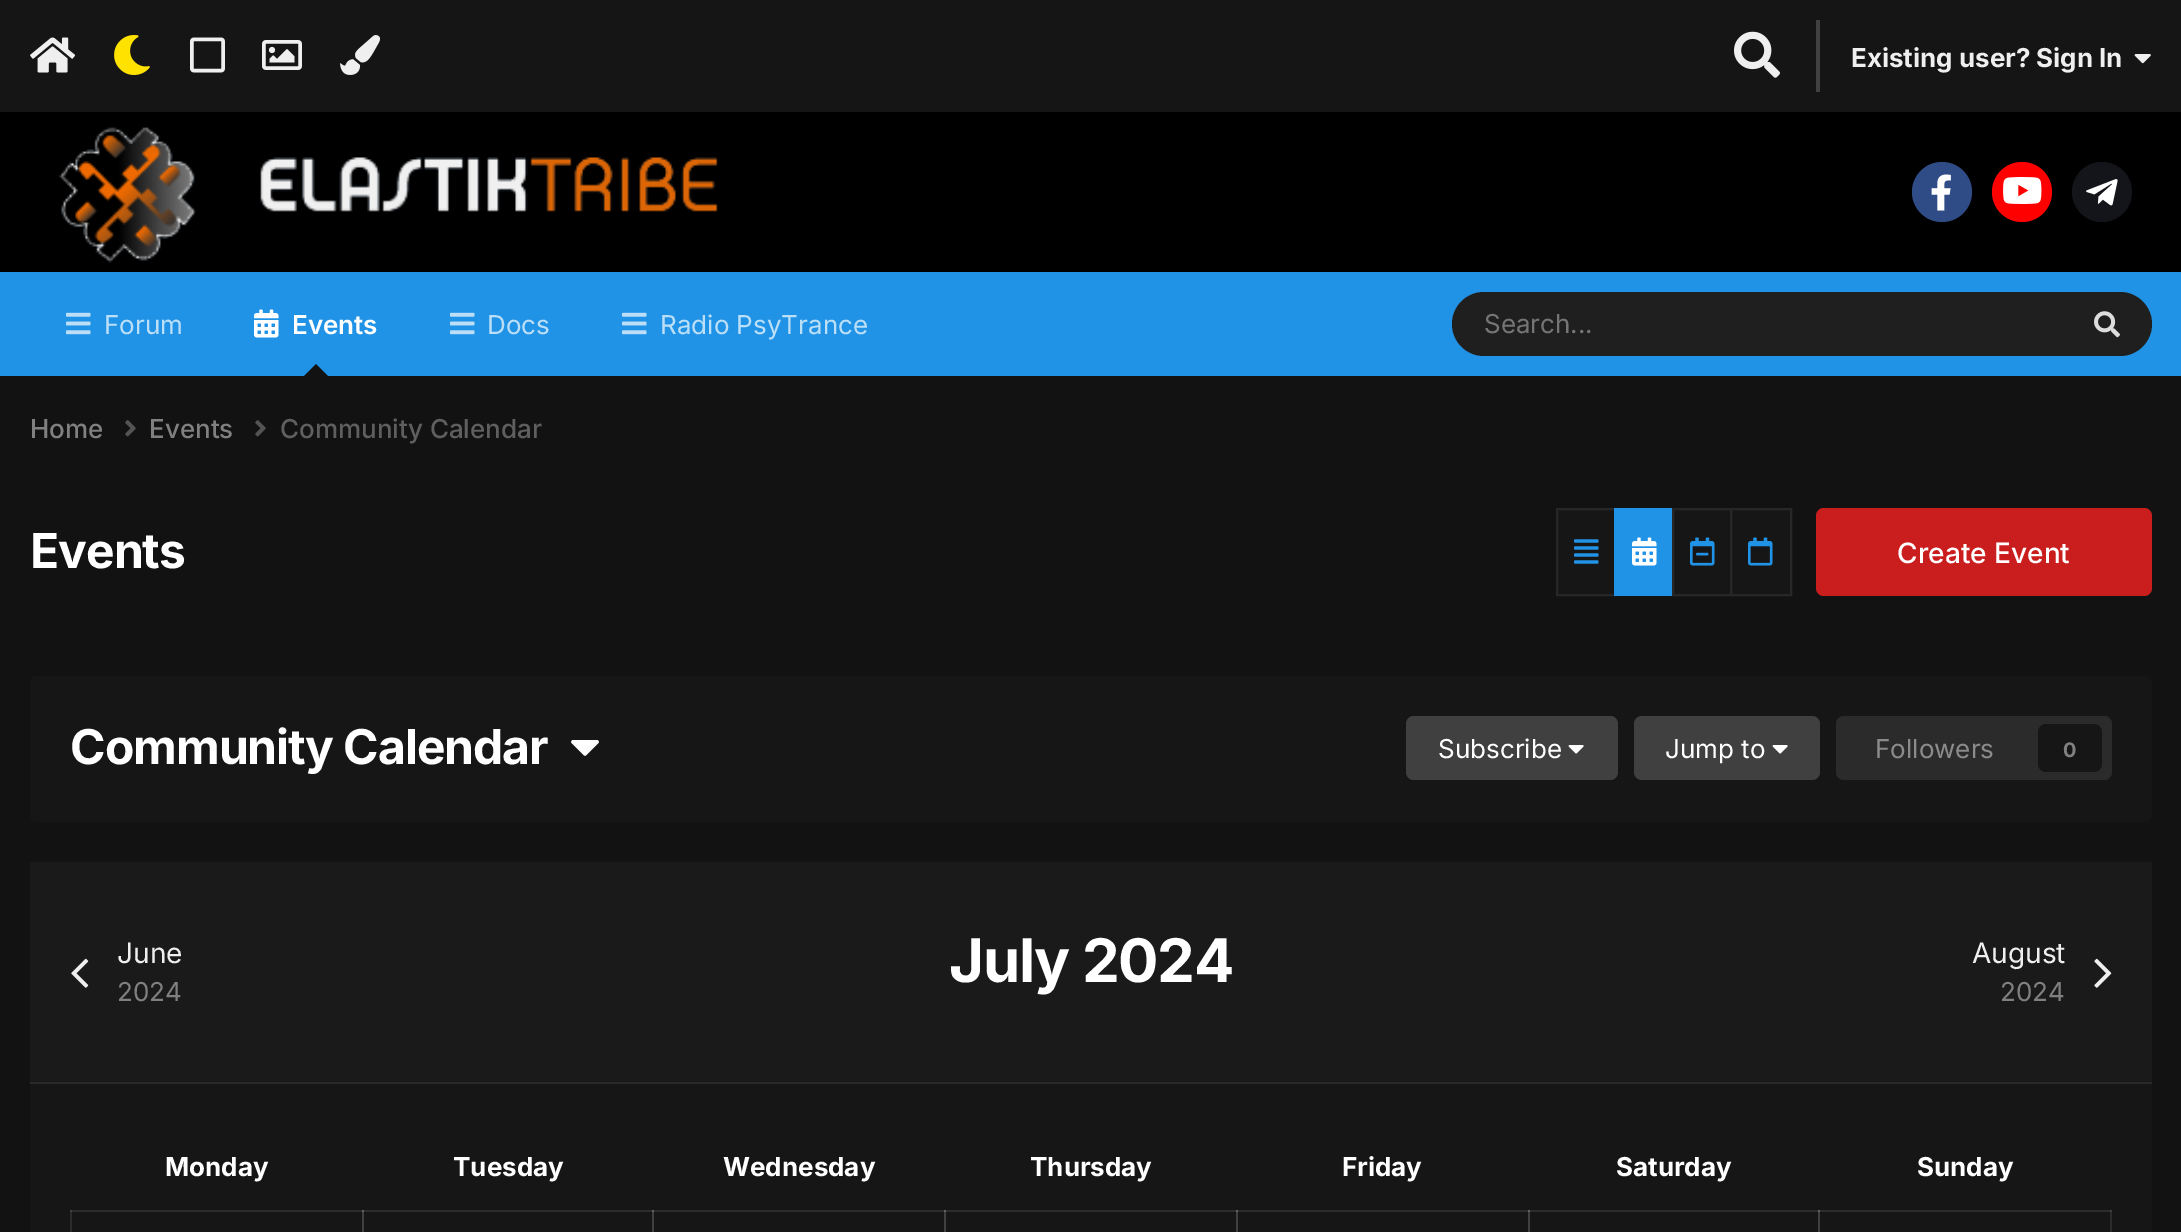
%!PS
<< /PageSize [2181 1232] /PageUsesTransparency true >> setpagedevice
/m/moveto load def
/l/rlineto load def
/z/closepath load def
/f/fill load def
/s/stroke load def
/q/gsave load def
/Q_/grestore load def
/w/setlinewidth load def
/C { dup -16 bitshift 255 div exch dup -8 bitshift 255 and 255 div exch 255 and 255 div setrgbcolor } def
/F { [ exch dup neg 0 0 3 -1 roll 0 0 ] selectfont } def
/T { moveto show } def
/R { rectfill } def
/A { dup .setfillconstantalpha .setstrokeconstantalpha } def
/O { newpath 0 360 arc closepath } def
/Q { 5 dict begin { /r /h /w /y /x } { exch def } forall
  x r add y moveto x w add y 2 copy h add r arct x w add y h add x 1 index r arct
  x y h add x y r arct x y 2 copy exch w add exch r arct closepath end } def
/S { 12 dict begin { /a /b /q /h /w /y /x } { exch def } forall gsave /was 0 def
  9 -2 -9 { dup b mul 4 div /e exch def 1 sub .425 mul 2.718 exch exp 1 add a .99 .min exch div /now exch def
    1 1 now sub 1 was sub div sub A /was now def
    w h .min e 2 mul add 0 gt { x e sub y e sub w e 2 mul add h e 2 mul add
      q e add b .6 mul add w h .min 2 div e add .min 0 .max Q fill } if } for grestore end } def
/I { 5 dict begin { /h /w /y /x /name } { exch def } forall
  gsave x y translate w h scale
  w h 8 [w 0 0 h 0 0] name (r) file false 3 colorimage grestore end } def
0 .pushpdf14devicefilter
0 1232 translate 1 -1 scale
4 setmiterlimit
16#121212 C
0 0 2181 1232 R
16#000000 C
0 112 2181 160 R
(8.rgb) 59 127 659 136 I
16#304C87 C
1942 192 30 O f
16#FF0000 C
2022 192 30 O f
16#14151B C
2102 192 30 O f
16#000000 C
0 8 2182 112 0 15 .53 S
16#151515 C
0 0 2181 112 R
(1.rgb) 30 37 46 36 I
(2.rgb) 114 35 36 40 I
(3.rgb) 190 37 35 36 I
(4.rgb) 262 40 40 30 I
(5.rgb) 340 35 41 40 I
(6.rgb) 1734 31 46 47 I
16#414141 C
1816 20 4 72 R
/Inter-Bold 26 F
16#EFEFEF C
(Existing user? Sign In) 1851 67 T
(7.rgb) 2134 54 17 10 I
(9.rgb) 1931 174 20 37 I
(10.rgb) 2003 177 39 27 I
(11.rgb) 2086 179 32 27 I
16#2193E6 C
0 272 2181 104 R
(12.rgb) 66 312 25 23 I
/Inter-Regular 26 F
16#BCDFF8 C
(Forum) 104 334 T
(13.rgb) 254 309 25 29 I
/Inter-SemiBold 26 F
16#FFFFFF C
(Events) 292 334 T
16#121212 C
328 376 m -24 0 l 12 -12 l z f
(12.rgb) 450 312 25 23 I
/Inter-Regular 26 F
16#BCDFF8 C
(Docs) 487 334 T
(12.rgb) 622 312 25 23 I
(Radio PsyTrance) 660 334 T
16#1F1F1F C
1452 292 700 64 32 Q f
16#757575 C
(Search...) 1484 333 T
(14.rgb) 2094 311 26 27 I
/Inter-Medium 26 F
16#808080 C
(Home) 30 438 T
(15.rgb) 125 420 11 17 I
(Events) 149 438 T
(15.rgb) 255 420 11 17 I
16#5F5F5F C
(Community Calendar) 280 438 T
/Inter-Bold 48 F
16#FFFFFF C
30 568 m -1 0 (Events) ashow
16#161616 C
1557 509 m 58 0 l 0 86 l -58 0 l z q f Q_
16#272727 C
2 w
s
(16.rgb) 1574 539 25 25 I
16#2193E6 C
1614 508 58 88 R
(13.rgb) 1632 537 25 29 I
16#161616 C
1673 509 m 58 0 l 0 86 l -58 0 l z q f Q_
16#272727 C
s
(17.rgb) 1690 537 25 29 I
16#161616 C
1731 509 m 60 0 l 0 86 l -60 0 l z q f Q_
16#272727 C
s
(18.rgb) 1748 537 25 29 I
16#CA1E1E C
1816 508 336 88 8 Q f
/Inter-Medium 28 F
16#FFFFFF C
(Create Event) 1897 563 T
16#161616 C
30 676 2122 146 8 Q f
/Inter-Bold 48 F
16#FFFFFF C
70 764 m -1 0 (Community Calendar) ashow
(19.rgb) 571 740 28 16 I
16#404040 C
1406 716 212 64 8 Q f
/Inter-Regular 26 F
16#FFFFFF C
(Subscribe) 1438 758 T
(20.rgb) 1568 745 16 9 I
16#404040 C
1634 716 186 64 8 Q f
16#FFFFFF C
(Jump to) 1665 758 T
(20.rgb) 1772 745 16 9 I
16#2B2B2B C
1836 716 276 64 8 Q f
16#8B8B8B C
(Followers) 1875 758 T
16#161616 C
2038 724 64 48 8 Q f
/Inter-Bold 20 F
16#808080 C
(0) 2063 757 T
16#161616 C
30 1084 2122 148 R
16#2C2C2C C
70 1210 2 22 R
70 1210 294 2 R
16#404040 C
70 1210 2 2 R
362 1210 2 22 R
16#2C2C2C C
362 1210 292 2 R
16#626262 C
362 1210 2 2 R
16#404040 C
652 1210 2 22 R
16#2C2C2C C
652 1210 294 2 R
16#626262 C
652 1210 2 2 R
16#404040 C
944 1210 2 22 R
16#2C2C2C C
944 1210 294 2 R
16#626262 C
944 1210 2 2 R
16#404040 C
1236 1210 2 22 R
16#2C2C2C C
1236 1210 294 2 R
16#626262 C
1236 1210 2 2 R
16#404040 C
1528 1210 2 22 R
16#2C2C2C C
1528 1210 292 2 R
16#626262 C
1528 1210 2 2 R
16#404040 C
1818 1210 2 22 R
16#2C2C2C C
2110 1210 2 22 R
16#1A1A1A C
30 862 2122 220 R
16#292929 C
30 1082 2122 2 R
/Inter-Regular 28 F
16#EFEFEF C
(June) 117 963 T
(21.rgb) 71 958 18 30 I
/Inter-Regular 26 F
16#808080 C
(2024) 117 1001 T
/Inter-Bold 60 F
16#FFFFFF C
949 982 m -1.25 0 (July 2024) ashow
/Inter-Regular 28 F
16#EFEFEF C
(August) 1972 963 T
(22.rgb) 2094 958 18 30 I
/Inter-Regular 26 F
16#808080 C
(2024) 2000 1001 T
/Inter-Bold 26 F
16#FFFFFF C
(Monday) 165 1176 T
(Tuesday) 453 1176 T
(Wednesday) 723 1176 T
(Thursday) 1030 1176 T
(Friday) 1342 1176 T
(Saturday) 1616 1176 T
(Sunday) 1917 1176 T
16#2C2C2C C
1818 1210 294 2 R
16#626262 C
1818 1210 2 2 R
16#404040 C
2110 1210 2 2 R
.poppdf14devicefilter showpage
